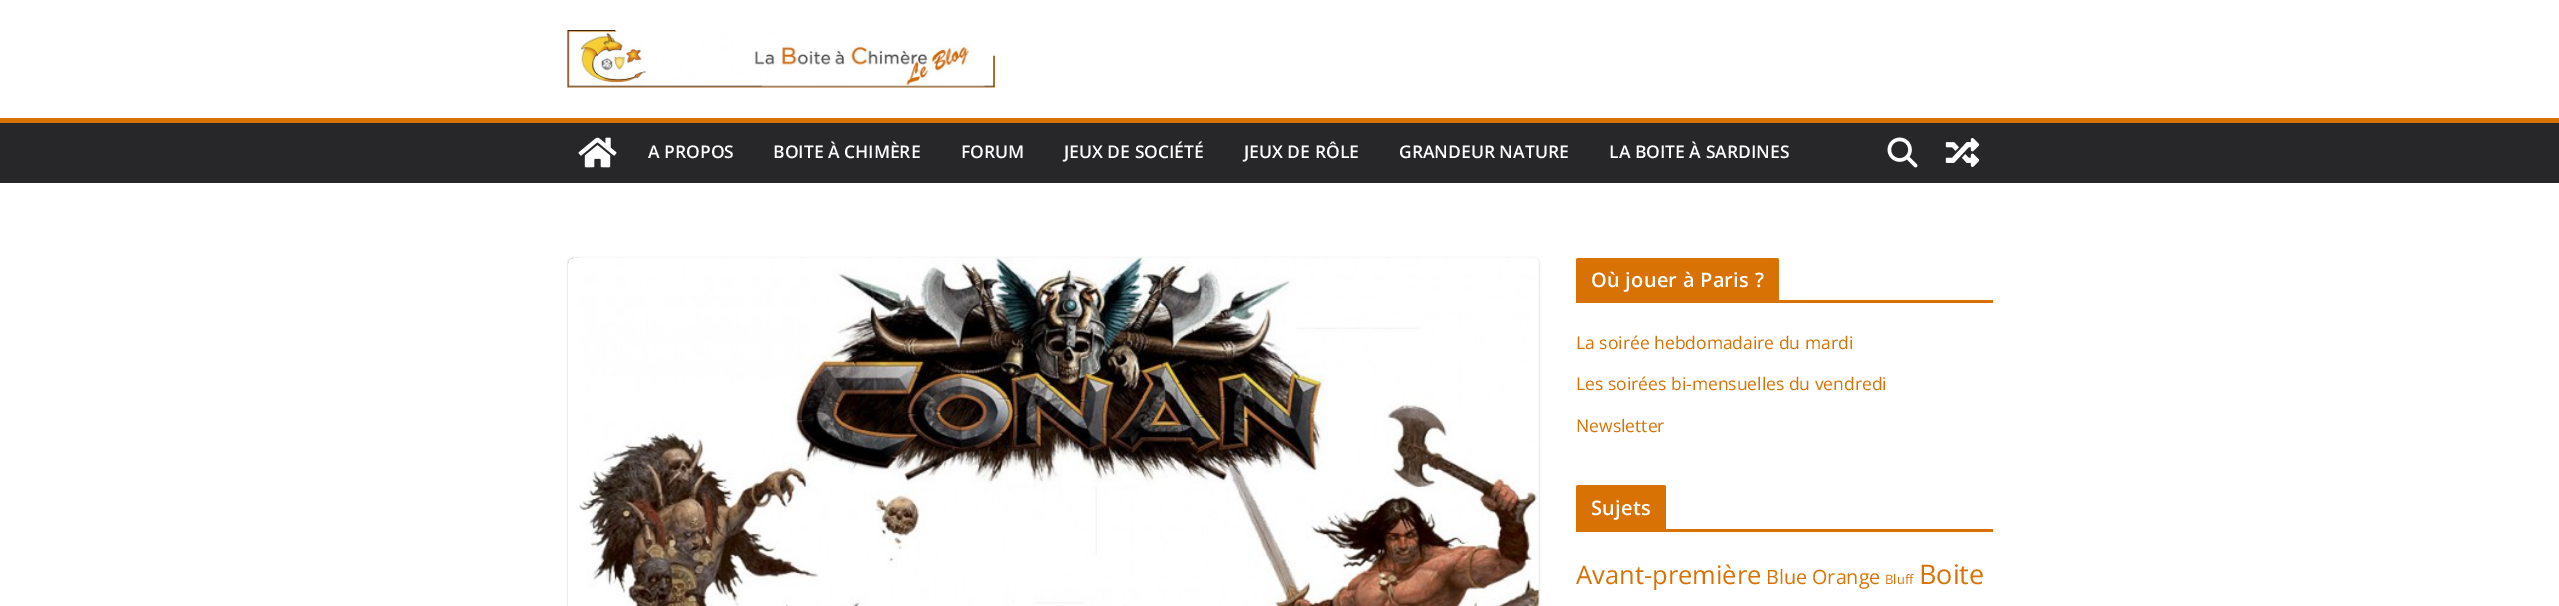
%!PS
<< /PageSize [2559 606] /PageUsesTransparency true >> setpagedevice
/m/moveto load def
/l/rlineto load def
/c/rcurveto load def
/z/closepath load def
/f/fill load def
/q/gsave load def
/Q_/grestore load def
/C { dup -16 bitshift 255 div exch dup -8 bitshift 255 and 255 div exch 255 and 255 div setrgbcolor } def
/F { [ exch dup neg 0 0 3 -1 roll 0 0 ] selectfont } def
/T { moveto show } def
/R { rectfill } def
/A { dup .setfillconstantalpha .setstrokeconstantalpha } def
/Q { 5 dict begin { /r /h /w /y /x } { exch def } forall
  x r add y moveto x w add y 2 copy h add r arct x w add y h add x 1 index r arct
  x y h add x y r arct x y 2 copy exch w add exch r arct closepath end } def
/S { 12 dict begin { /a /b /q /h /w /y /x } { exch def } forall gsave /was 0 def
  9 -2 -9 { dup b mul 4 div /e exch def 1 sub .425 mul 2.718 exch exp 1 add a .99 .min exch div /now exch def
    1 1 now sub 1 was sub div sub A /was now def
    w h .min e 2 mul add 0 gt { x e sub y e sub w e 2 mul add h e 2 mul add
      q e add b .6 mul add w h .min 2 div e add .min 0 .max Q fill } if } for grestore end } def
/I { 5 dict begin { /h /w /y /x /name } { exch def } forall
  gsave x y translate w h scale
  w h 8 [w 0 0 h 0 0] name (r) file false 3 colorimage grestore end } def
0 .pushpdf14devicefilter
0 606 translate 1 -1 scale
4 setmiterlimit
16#FFFFFF C
0 0 2559 606 R
(1.rgb) 567 30 428 58 I
16#27272A C
0 123 2559 60 R
16#D87204 C
0 118 2559 5 R
(2.rgb) 578 137 39 31 I
/OpenSans-SemiBold 17.5 F
16#FFFFFF C
(A PROPOS) 648 158 T
(BOITE À CHIMÈRE) 773 158 T
(FORUM) 961 158 T
(JEUX DE SOCIÉTÉ) 1064 158 T
(JEUX DE RÔLE) 1244 158 T
(GRANDEUR NATURE) 1399 158 T
(LA BOITE À SARDINES) 1609 158 T
(3.rgb) 1887 137 31 31 I
(4.rgb) 1945 138 35 29 I
q
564 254 m 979 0 l 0 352 l -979 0 l z 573 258 m 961 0 l 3 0 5 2 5 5 c 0 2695 l 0 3 -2 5 -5 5 c -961 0 l -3 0 -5 -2 -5 -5 c 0 -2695 l 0 -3 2 -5 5 -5 c z eoclip newpath
16#000000 C
568 258 971 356 5 1 .24 S
Q_
(5.rgb) 579 257 960 349 I
16#D87204 C
1576 300 417 3 R
1578.5 258 m 198 0 l 1.5 0 2.5 1 2.5 2.5 c 0 39.5 l -203 0 l 0 -39.5 l 0 -1.5 1 -2.5 2.5 -2.5 c z f
/OpenSans-SemiBold 20 F
16#FFFFFF C
1591 287 m .25 0 (Où jouer à Paris ?) ashow
/OpenSans-Regular 17.5 F
16#D87204 C
(La soirée hebdomadaire du mardi) 1576 349 T
(Les soirées bi-mensuelles du vendredi) 1576 390 T
(Newsletter) 1576 432 T
1576 529 417 3 R
1578.5 485 m 85 0 l 1.5 0 2.5 1 2.5 2.5 c 0 41.5 l -90 0 l 0 -41.5 l 0 -1.5 1 -2.5 2.5 -2.5 c z f
/OpenSans-SemiBold 20 F
16#FFFFFF C
1591 515 m .25 0 (Sujets) ashow
/OpenSans-Regular 25.5 F
16#D87204 C
(Avant-première) 1576 584 T
/OpenSans-Regular 19.75 F
(Blue Orange) 1766 584 T
/OpenSans-Regular 13 F
(Bluff) 1885 584 T
/OpenSans-Regular 27 F
(Boite) 1919 584 T
.poppdf14devicefilter showpage
